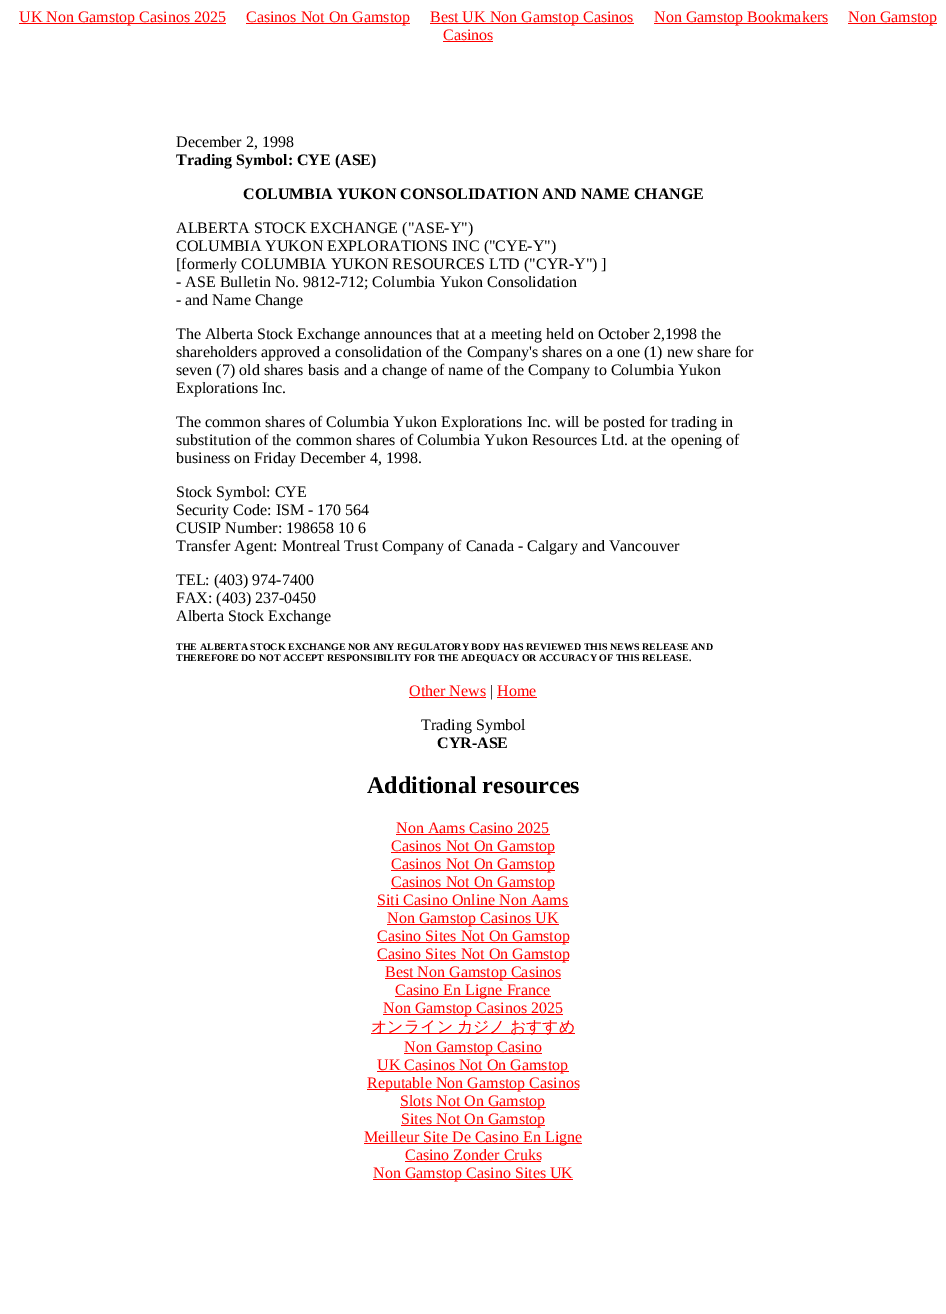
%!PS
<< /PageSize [946 1314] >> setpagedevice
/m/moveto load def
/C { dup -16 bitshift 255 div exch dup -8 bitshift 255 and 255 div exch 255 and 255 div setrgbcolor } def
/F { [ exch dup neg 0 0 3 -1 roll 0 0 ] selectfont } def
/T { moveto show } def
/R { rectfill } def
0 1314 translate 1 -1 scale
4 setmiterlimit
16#FFFFFF C
0 0 946 1314 R
16#FF0000 C
19 23 207 1 R
/LiberationSerif-Regular 16 F
(UK Non Gamstop Casinos 2025) 19 22 T
246 23 164 1 R
(Casinos Not On Gamstop) 246 22 T
430 23 204 1 R
(Best UK Non Gamstop Casinos) 430 22 T
654 23 174 1 R
(Non Gamstop Bookmakers) 654 22 T
848 23 89 1 R
(Non Gamstop) 848 22 T
(Casinos) 443 40 T
443 41 50 1 R
16#000000 C
(December 2, 1998) 176 147 T
/LiberationSerif-Bold 16 F
(Trading Symbol: CYE \(ASE\)) 176 165 T
(COLUMBIA YUKON CONSOLIDATION AND NAME CHANGE) 243 199 T
/LiberationSerif-Regular 16 F
(ALBERTA STOCK EXCHANGE \("ASE-Y"\)) 176 233 T
(COLUMBIA YUKON EXPLORATIONS INC \("CYE-Y"\)) 176 251 T
([formerly COLUMBIA YUKON RESOURCES LTD \("CYR-Y"\) ]) 176 269 T
(- ASE Bulletin No. 9812-712; Columbia Yukon Consolidation) 176 287 T
(- and Name Change) 176 305 T
(The Alberta Stock Exchange announces that at a meeting held on October 2,1998 the) 176 339 T
(shareholders approved a consolidation of the Company's shares on a one \(1\) new share for) 176 357 T
(seven \(7\) old shares basis and a change of name of the Company to Columbia Yukon) 176 375 T
(Explorations Inc.) 176 393 T
(The common shares of Columbia Yukon Explorations Inc. will be posted for trading in) 176 427 T
(substitution of the common shares of Columbia Yukon Resources Ltd. at the opening of) 176 445 T
(business on Friday December 4, 1998.) 176 463 T
(Stock Symbol: CYE) 176 497 T
(Security Code: ISM - 170 564) 176 515 T
(CUSIP Number: 198658 10 6) 176 533 T
(Transfer Agent: Montreal Trust Company of Canada - Calgary and Vancouver) 176 551 T
(TEL: \(403\) 974-7400) 176 585 T
(FAX: \(403\) 237-0450) 176 603 T
(Alberta Stock Exchange) 176 621 T
/LiberationSerif-Bold 10 F
(THE ALBERTA STOCK EXCHANGE NOR ANY REGULATORY BODY HAS REVIEWED THIS NEWS RELEASE AND) 176 650 T
(THEREFORE DO NOT ACCEPT RESPONSIBILITY FOR THE ADEQUACY OR ACCURACY OF THIS RELEASE.) 176 661 T
/LiberationSerif-Regular 16 F
16#FF0000 C
(Other News) 409 696 T
409 697 77 1 R
16#000000 C
(|) 490 696 T
16#FF0000 C
(Home) 497 696 T
497 697 40 1 R
16#000000 C
(Trading Symbol) 421 730 T
/LiberationSerif-Bold 16 F
(CYR-ASE) 437 748 T
/LiberationSerif-Bold 24 F
(Additional resources) 367 793 T
/LiberationSerif-Regular 16 F
16#FF0000 C
(Non Aams Casino 2025) 396 833 T
396 834 154 1 R
391 852 164 1 R
(Casinos Not On Gamstop) 391 851 T
391 870 164 1 R
(Casinos Not On Gamstop) 391 869 T
391 888 164 1 R
(Casinos Not On Gamstop) 391 887 T
(Siti Casino Online Non Aams) 377 905 T
377 906 192 1 R
387 924 172 1 R
(Non Gamstop Casinos UK) 387 923 T
377 942 192 1 R
(Casino Sites Not On Gamstop) 377 941 T
377 960 192 1 R
(Casino Sites Not On Gamstop) 377 959 T
385 978 176 1 R
(Best Non Gamstop Casinos) 385 977 T
395 996 156 1 R
(Casino En Ligne France) 395 995 T
383 1014 180 1 R
(Non Gamstop Casinos 2025) 383 1013 T
371 1033 204 1 R
/WenQuanYiZenHei-Medium 16 F
371 1032 m -1 0 32 (オンライン カジノ おすすめ) widthshow
404 1053 138 1 R
/LiberationSerif-Regular 16 F
(Non Gamstop Casino) 404 1052 T
377 1071 192 1 R
(UK Casinos Not On Gamstop) 377 1070 T
367 1089 212 1 R
(Reputable Non Gamstop Casinos) 367 1088 T
400 1107 146 1 R
(Slots Not On Gamstop) 400 1106 T
401 1125 144 1 R
(Sites Not On Gamstop) 401 1124 T
364 1143 218 1 R
(Meilleur Site De Casino En Ligne) 364 1142 T
(Casino Zonder Cruks) 405 1160 T
405 1161 136 1 R
373 1179 200 1 R
(Non Gamstop Casino Sites UK) 373 1178 T
showpage
